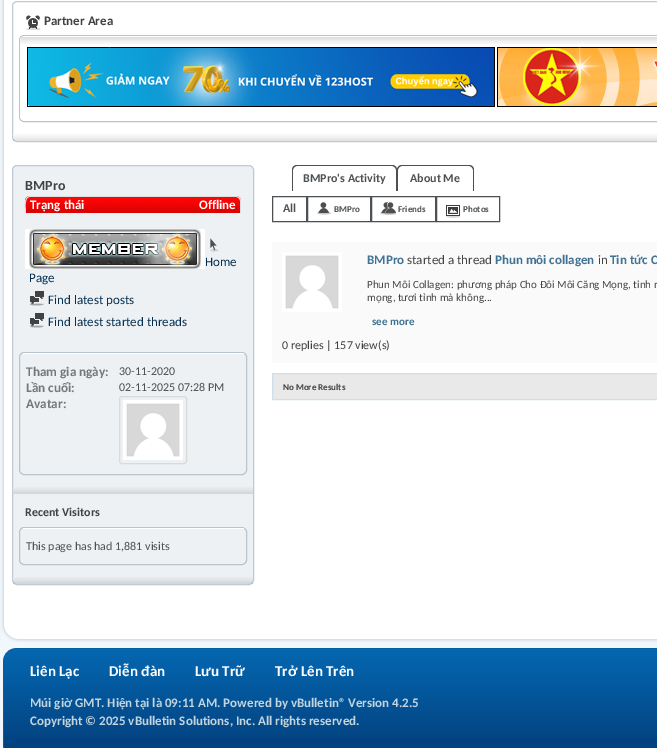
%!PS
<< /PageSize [657 748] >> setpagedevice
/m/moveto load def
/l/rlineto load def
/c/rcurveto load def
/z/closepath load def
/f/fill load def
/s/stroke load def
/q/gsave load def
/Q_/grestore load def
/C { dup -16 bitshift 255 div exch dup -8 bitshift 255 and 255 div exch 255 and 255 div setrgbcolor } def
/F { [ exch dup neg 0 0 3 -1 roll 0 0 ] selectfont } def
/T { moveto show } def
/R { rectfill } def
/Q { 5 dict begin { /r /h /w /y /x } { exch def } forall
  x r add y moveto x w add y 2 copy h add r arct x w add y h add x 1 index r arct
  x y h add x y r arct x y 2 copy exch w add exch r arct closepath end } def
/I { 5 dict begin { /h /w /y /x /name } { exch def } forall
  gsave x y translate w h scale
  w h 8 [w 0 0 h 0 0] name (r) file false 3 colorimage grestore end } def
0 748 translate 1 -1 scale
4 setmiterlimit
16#F0F7FD C
0 0 657 748 R
16#FFFFFF C
5 0 652 639 R
(1.rgb) 18 639 639 4 I
(2.rgb) 0 0 5 643 I
(3.rgb) 1 626 17 17 I
16#BECAD5 C
12.5 1.5 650 140 4.5 Q s
(4.rgb) 25 15 16 15 I
/Carlito-Bold 13 F
16#424242 C
(Partner Area) 44 25 T
16#B9C4CD C
19.5 35.5 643 86 4.5 Q s
16#FFFFFF C
20 36 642 85 5 Q f
(5.rgb) 20 37 637 7 I
(6.rgb) 27 47 468 60 I
(7.rgb) 497 47 160 60 I
(8.rgb) 13 134 644 7 I
16#EDF1F4 C
12.5 165.5 241 419 4.5 Q q f Q_
16#BECAD5 C
s
/Carlito-Bold 14 F
16#424242 C
(BMPro) 25 190 T
(9.rgb) 25 196 216 17 I
16#DDDDDD C
30 196 m 206 0 l 3 0 5 2 5 5 c 0 12 l -216 0 l 0 -4 -2 -17 5 -17 c z 30 197 m 206 0 l 2 0 4 2 4 4 c 0 12 l -214 0 l 0 -4 -2 -16 4 -16 c z eofill
/Carlito-Bold 13 F
16#FFFFFF C
(Trạng thái) 30 209 T
(Offline) 199 209 T
(10.rgb) 25 229 180 40 I
(11.rgb) 210 238 9 14 I
/Carlito-Regular 13 F
16#062F50 C
(Home) 205 266 T
(Page) 29 282 T
(12.rgb) 29 291 15 15 I
(Find latest posts) 48 304 T
(12.rgb) 29 313 15 15 I
(Find latest started threads) 48 326 T
16#B9C4CD C
19.5 352.5 227 122 4.5 Q s
16#FFFFFF C
23 353 221 1 R
/Carlito-Bold 13.25 F
16#777777 C
(Tham gia ngày:) 26 376 T
/Carlito-Regular 12 F
16#4D5153 C
(30-11-2020) 119 375 T
/Carlito-Bold 13.25 F
16#777777 C
(Lần cuối:) 26 392 T
/Carlito-Regular 12 F
16#4D5153 C
(02-11-2025 07:28 PM) 119 391 T
/Carlito-Bold 13.25 F
16#777777 C
(Avatar:) 26 408 T
16#DADADA C
119.5 396.5 67 67 2.5 Q s
(13.rgb) 123 400 60 60 I
(14.rgb) 13 487 240 7 I
/Carlito-Bold 12 F
16#424242 C
(Recent Visitors) 25 516 T
16#B9C4CD C
19.5 527.5 227 37 4.5 Q s
16#FFFFFF C
23 528 221 1 R
/Carlito-Regular 12 F
16#4D5153 C
(This page has had 1,881 visits) 26 550 T
(15.rgb) 13 577 240 7 I
297 165 m 95 0 l 3 0 5 2 5 5 c 0 21 l -105 0 l 0 -21 l 0 -3 2 -5 5 -5 c z 297 166 m 95 0 l 2 0 4 2 4 4 c 0 21 l -103 0 l 0 -21 l 0 -2 2 -4 4 -4 c z eofill
/Carlito-Bold 12 F
(BMPro's Activity) 303 182 T
402 165 m 67 0 l 3 0 5 2 5 5 c 0 21 l -77 0 l 0 -21 l 0 -3 2 -5 5 -5 c z 402 166 m 67 0 l 2 0 4 2 4 4 c 0 21 l -75 0 l 0 -21 l 0 -2 2 -4 4 -4 c z eofill
(About Me) 410 182 T
272.5 196.5 34 25 rectstroke
(All) 283 212 T
307.5 196.5 63 25 rectstroke
(16.rgb) 317 202 14 13 I
/Carlito-Bold 9 F
(BMPro) 334 212 T
371.5 196.5 64 25 rectstroke
(17.rgb) 380 202 16 13 I
(Friends) 398 212 T
436.5 196.5 63 25 rectstroke
(18.rgb) 446 205 15 13 I
(Photos) 463 212 T
16#FAFAFA C
272 242 385 121 R
(13.rgb) 282 252 60 60 I
/Carlito-Bold 13 F
16#417394 C
(BMPro) 367 264 T
/Carlito-Regular 13 F
16#424242 C
(started a thread) 407 264 T
/Carlito-Bold 13 F
16#417394 C
(Phun môi collagen) 495 264 T
/Carlito-Regular 13 F
16#424242 C
(in) 598 264 T
/Carlito-Bold 13 F
16#417394 C
(Tin tức C) 610 264 T
/Carlito-Regular 11 F
16#424242 C
(Phun Môi Collagen: phương pháp Cho Đôi Môi Căng Mọng, tinh r) 367 288 T
(mọng, tươi tỉnh mà không...) 367 301 T
/Carlito-Bold 11 F
16#417394 C
(see more) 372 325 T
/Carlito-Regular 12 F
16#424242 C
(0 replies | 157 view\(s\)) 282 349 T
16#E9E9E9 C
272.5 373.5 m 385 0 l 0 26 l -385 0 l z q f Q_
16#CEDFEB C
s
/Carlito-Bold 9 F
16#424242 C
(No More Results) 283 390 T
16#02417F C
15 738 642 10 R
(19.rgb) 15 648 642 90 I
(20.rgb) 0 648 15 100 I
/Carlito-Bold 15 F
16#FFFFFF C
(Liên Lạc) 30 676 T
(Diễn đàn) 109 676 T
(Lưu Trữ) 195 676 T
(Trở Lên Trên) 275 676 T
/Carlito-Bold 13 F
16#C3D4DF C
(Múi giờ GMT. Hiện tại là 09:11 AM. Powered by vBulletin® Version 4.2.5) 30 707 T
(Copyright © 2025 vBulletin Solutions, Inc. All rights reserved.) 30 725 T
showpage
